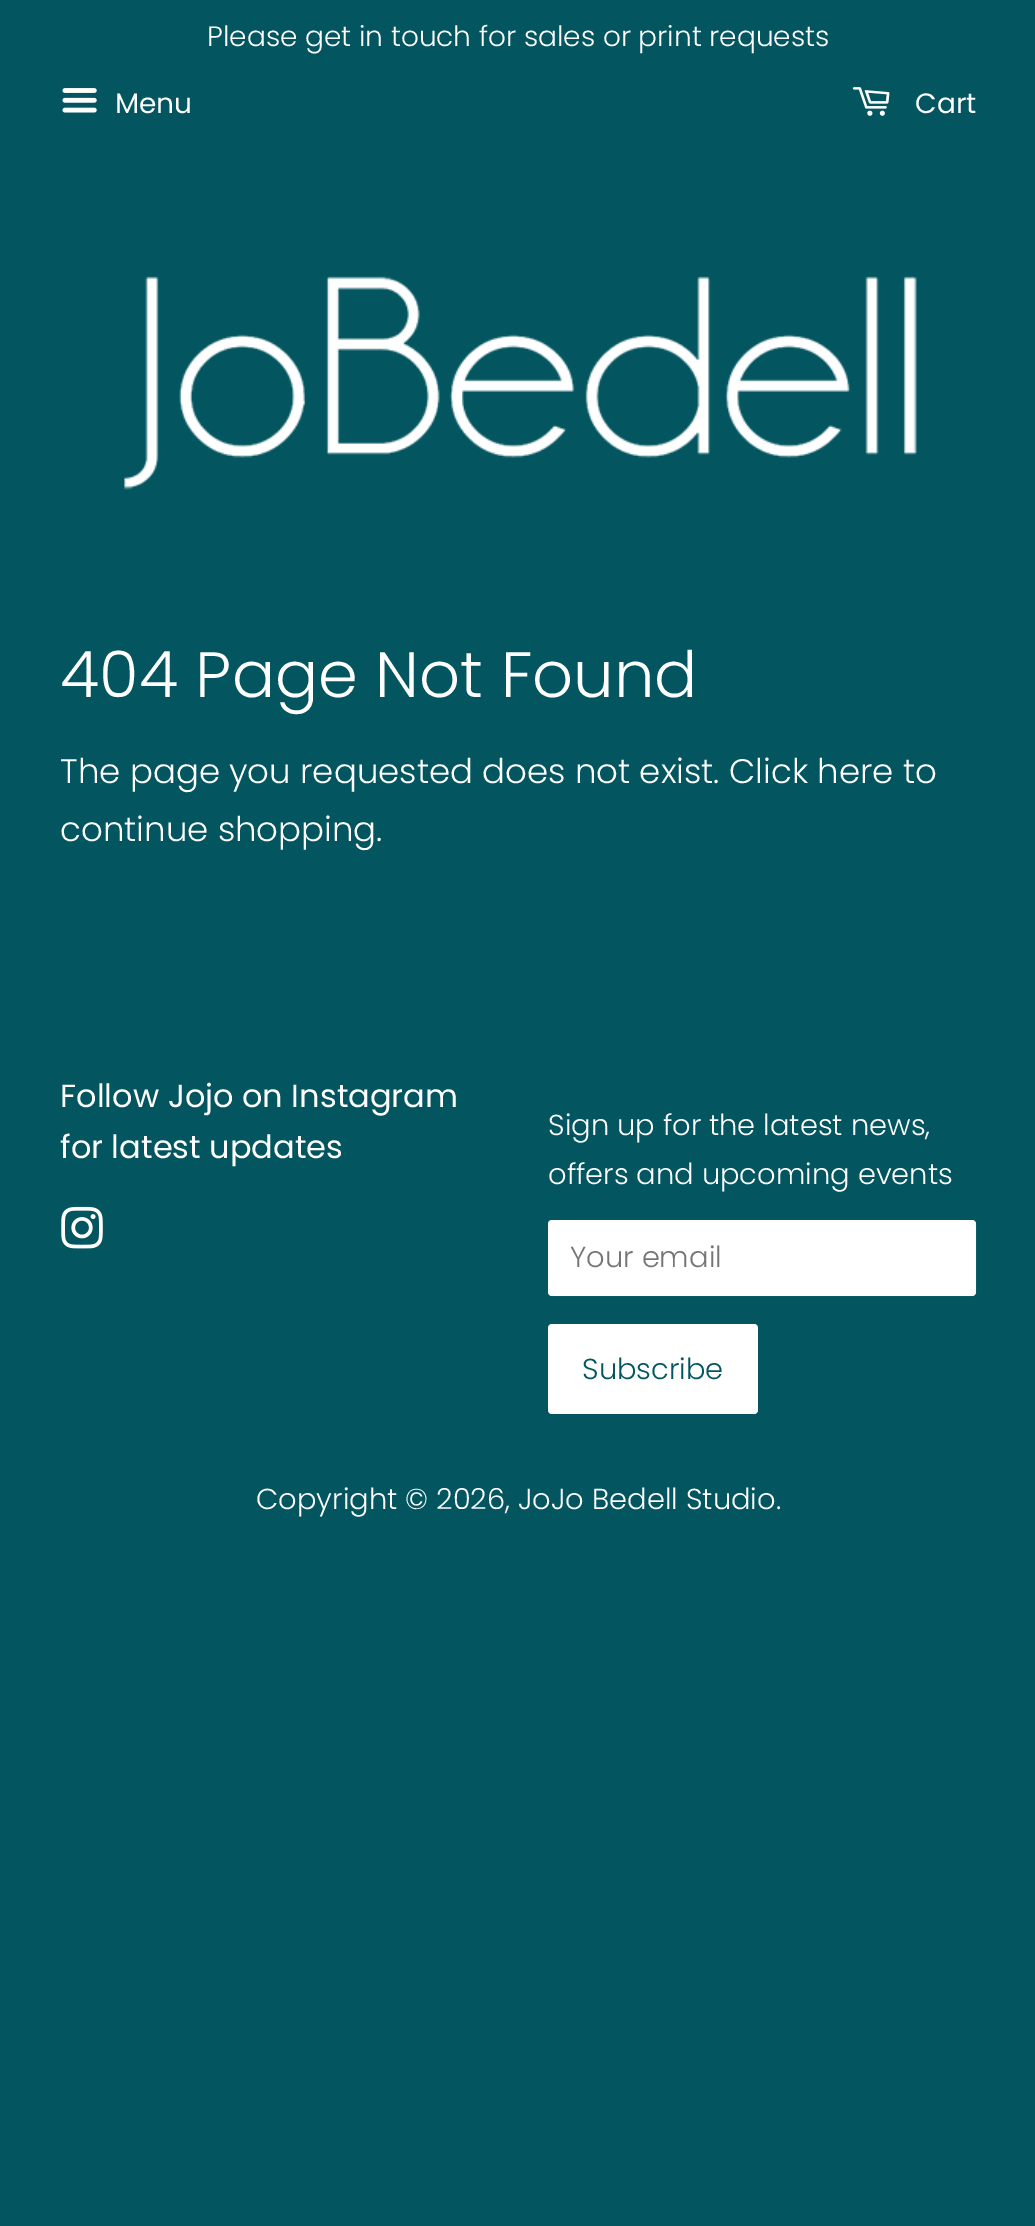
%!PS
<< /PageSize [1035 2226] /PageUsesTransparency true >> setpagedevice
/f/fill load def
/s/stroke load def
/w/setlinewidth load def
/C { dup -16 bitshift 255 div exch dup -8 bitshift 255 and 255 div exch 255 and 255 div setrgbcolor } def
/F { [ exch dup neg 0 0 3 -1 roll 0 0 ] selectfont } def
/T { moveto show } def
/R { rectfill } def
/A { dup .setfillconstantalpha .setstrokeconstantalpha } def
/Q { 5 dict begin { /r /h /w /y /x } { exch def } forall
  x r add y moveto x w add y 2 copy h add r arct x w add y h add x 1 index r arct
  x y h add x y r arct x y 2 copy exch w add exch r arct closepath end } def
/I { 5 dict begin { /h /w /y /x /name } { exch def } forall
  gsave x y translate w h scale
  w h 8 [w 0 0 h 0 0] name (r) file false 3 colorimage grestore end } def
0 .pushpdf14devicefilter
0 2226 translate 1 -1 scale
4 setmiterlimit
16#035560 C
0 0 1035 2226 R
/Poppins-Light 28 F
16#FFFFFF C
(Please get in touch for sales or print requests) 207 46 T
(1.rgb) 62 88 35 25 I
/Poppins-Regular 28 F
(Menu) 115 113 T
(2.rgb) 852 87 38 29 I
(Cart) 915 113 T
(3.rgb) 124 276 793 214 I
/Poppins-Light 64 F
(404 Page Not Found) 60 697 T
/Poppins-Light 34 F
(The page you requested does not exist. Click here to) 60 783 T
(continue shopping.) 60 841 T
/Poppins-Regular 32 F
(Follow Jojo on Instagram) 60 1107 T
(for latest updates) 60 1158 T
(4.rgb) 61 1206 42 43 I
/Poppins-Light 28.9 F
(Sign up for the latest news,) 548 1135 T
(offers and upcoming events) 548 1184 T
548 1220 428 76 4 Q f
0.15 A
2 w
549 1221 426 74 3 Q s
1 A
16#757575 C
(Your email) 570 1267 T
16#FFFFFF C
548 1324 210 90 4 Q f
16#035560 C
(Subscribe) 582 1379 T
16#FFFFFF C
(Copyright © 2026, JoJo Bedell Studio.) 256 1509 T
.poppdf14devicefilter showpage
